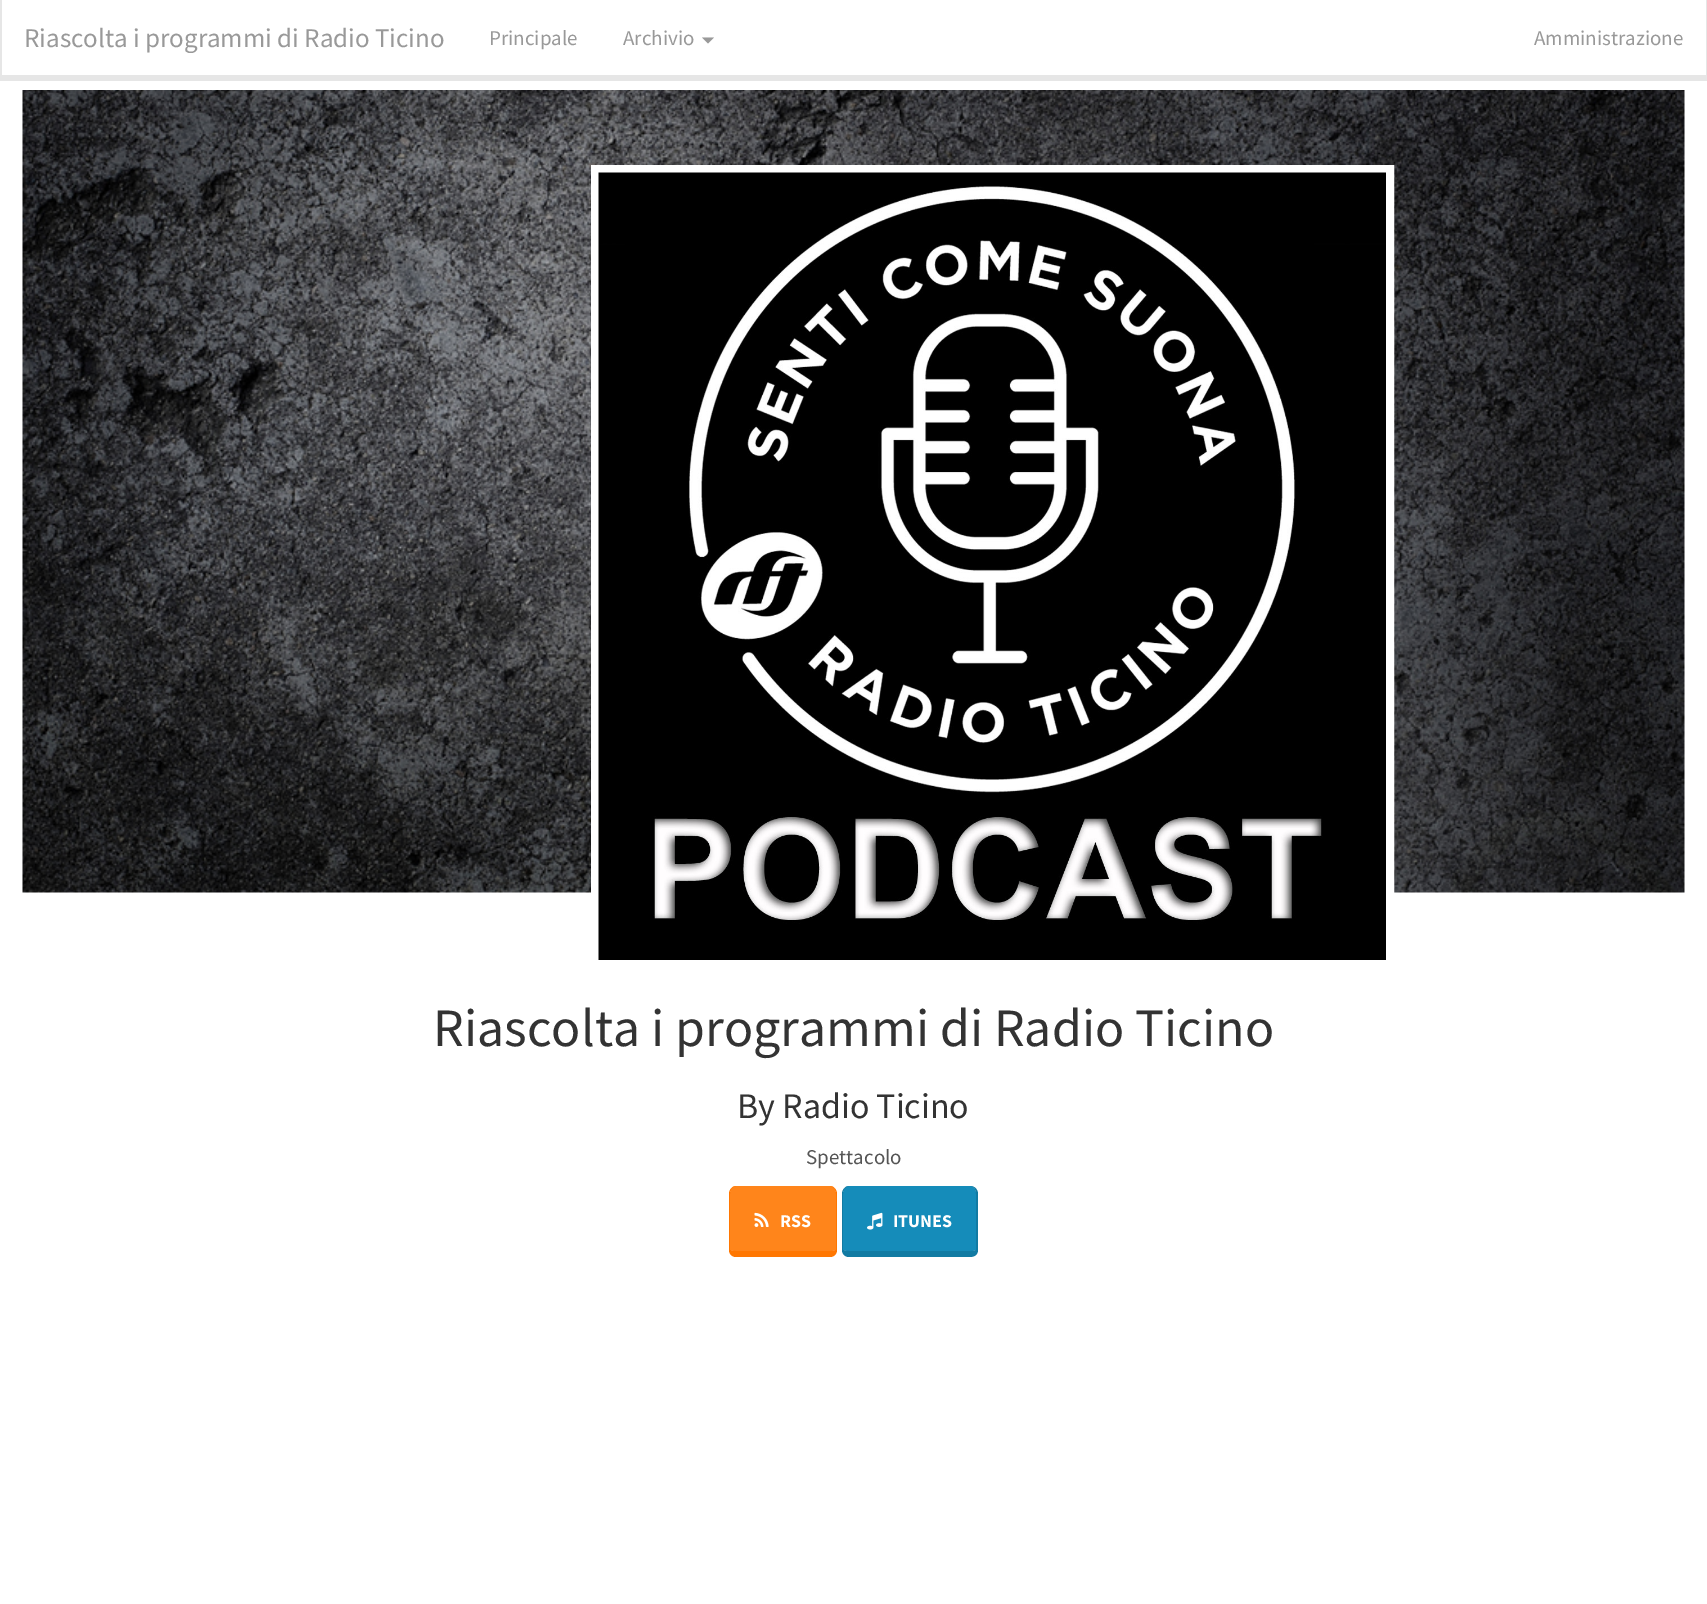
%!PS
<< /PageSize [1707 1604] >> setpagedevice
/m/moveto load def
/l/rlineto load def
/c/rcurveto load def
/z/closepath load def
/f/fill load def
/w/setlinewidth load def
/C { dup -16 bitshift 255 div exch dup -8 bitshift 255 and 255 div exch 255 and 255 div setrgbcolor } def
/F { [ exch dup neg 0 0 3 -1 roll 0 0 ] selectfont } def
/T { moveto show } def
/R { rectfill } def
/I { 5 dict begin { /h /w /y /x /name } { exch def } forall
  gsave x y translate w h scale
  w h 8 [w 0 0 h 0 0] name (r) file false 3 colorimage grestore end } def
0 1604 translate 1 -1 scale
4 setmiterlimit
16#FFFFFF C
0 0 1707 1604 R
16#E6E6E6 C
1706 0 1 81 R
0 75 1707 6 R
0 0 2 81 R
/SourceSansPro-Regular 27 F
16#999999 C
(Riascolta i programmi di Radio Ticino) 24 47 T
/SourceSansPro-Regular 21 F
(Principale) 489 45 T
(Archivio) 623 45 T
702 37.5 m 12 0 l -6 6 l z f
(Amministrazione) 1534 45 T
(1.rgb) 22 90 1663 803 I
16#FFFFFF C
8 w
595 169 795 795 rectstroke
(2.rgb) 598 172 788 788 I
/SourceSansPro-Regular 54 F
16#333333 C
(Riascolta i programmi di Radio Ticino) 433 1046 T
/SourceSansPro-Regular 36 F
(By Radio Ticino) 737 1118 T
/SourceSansPro-Regular 21 F
16#555555 C
(Spettacolo) 806 1164 T
16#FF851B C
736 1186 m 94 0 l 3 0 6 4 6 8 c 0 56 l 0 0 -3 1 -6 1 c -94 0 l -3 0 -6 -1 -6 -1 c 0 -56 l 0 -4 3 -8 6 -8 c z f
16#FF7701 C
736 1186 m 94 0 l 4 0 7 4 7 8 c 0 56 l 0 4 -3 7 -7 7 c -94 0 l -4 0 -7 -3 -7 -7 c 0 -56 l 0 -4 3 -8 7 -8 c z 736 1186 m 94 0 l 3 0 6 4 6 8 c 0 56 l 0 0 -3 1 -6 1 c -94 0 l -3 0 -6 -1 -6 -1 c 0 -56 l 0 -4 3 -8 6 -8 c z eofill
(3.rgb) 754 1212 15 15 I
/SourceSansPro-Bold 18 F
16#FFFFFF C
(RSS) 780 1227 T
16#158CBA C
849 1186 m 121 0 l 4 0 6 4 6 8 c 0 56 l 0 0 -2 1 -6 1 c -121 0 l -3 0 -6 -1 -6 -1 c 0 -56 l 0 -4 3 -8 6 -8 c z f
16#127BA3 C
849 1186 m 121 0 l 5 0 8 4 8 8 c 0 56 l 0 4 -3 7 -8 7 c -121 0 l -4 0 -7 -3 -7 -7 c 0 -56 l 0 -4 3 -8 7 -8 c z 849 1186 m 121 0 l 4 0 6 4 6 8 c 0 56 l 0 0 -2 1 -6 1 c -121 0 l -3 0 -6 -1 -6 -1 c 0 -56 l 0 -4 3 -8 6 -8 c z eofill
(4.rgb) 867 1212 16 18 I
16#FFFFFF C
(ITUNES) 893 1227 T
showpage
